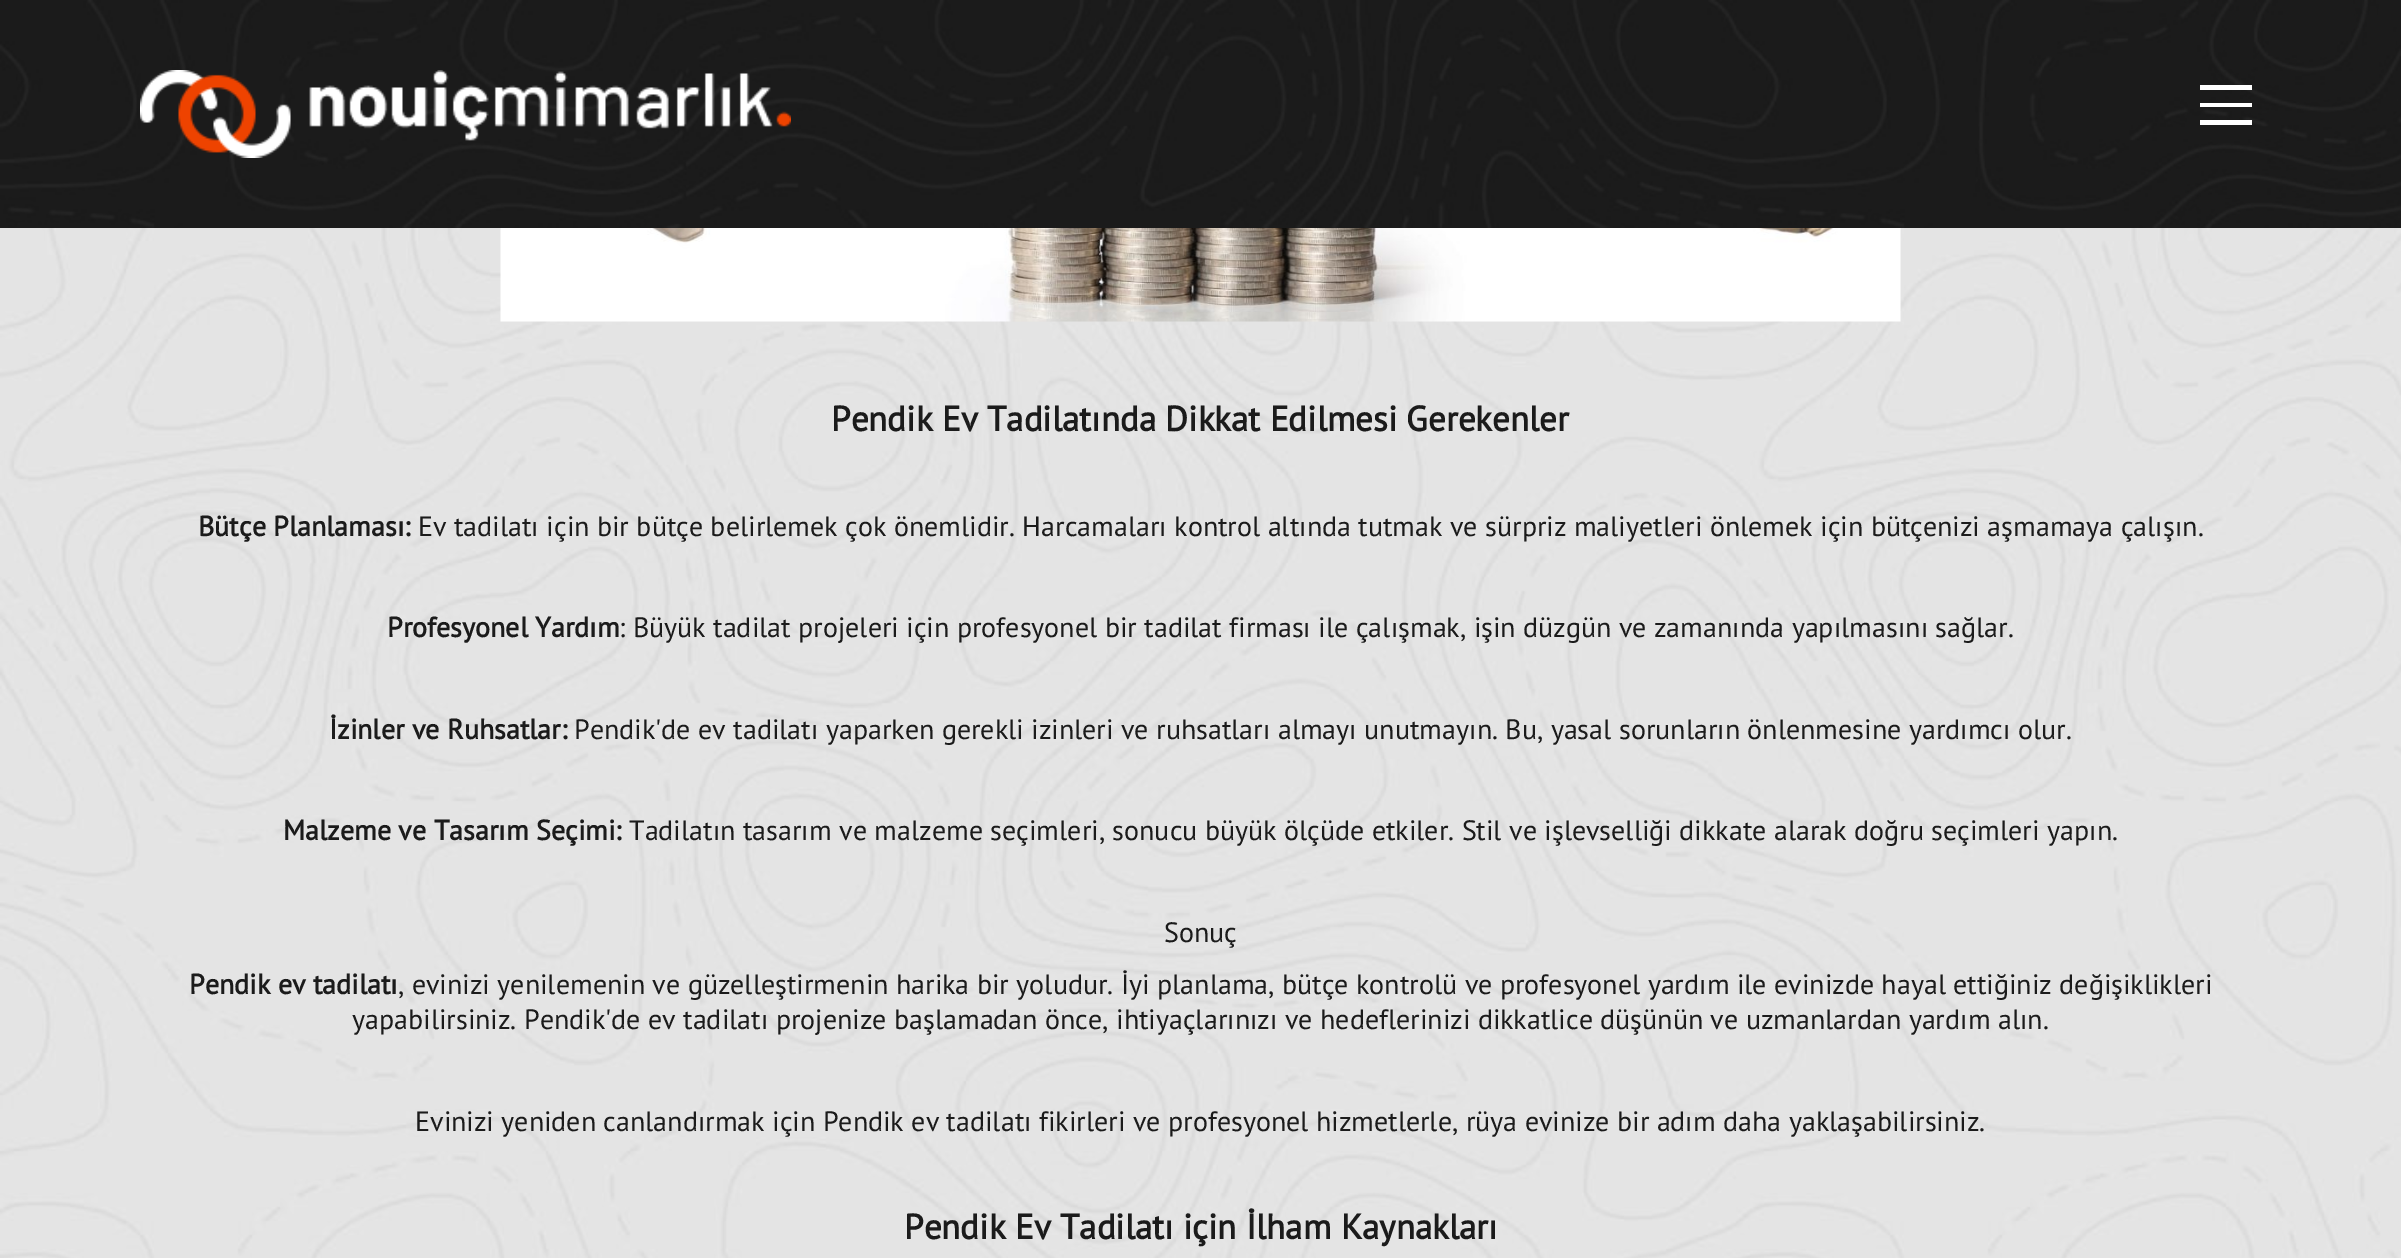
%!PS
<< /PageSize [2401 1258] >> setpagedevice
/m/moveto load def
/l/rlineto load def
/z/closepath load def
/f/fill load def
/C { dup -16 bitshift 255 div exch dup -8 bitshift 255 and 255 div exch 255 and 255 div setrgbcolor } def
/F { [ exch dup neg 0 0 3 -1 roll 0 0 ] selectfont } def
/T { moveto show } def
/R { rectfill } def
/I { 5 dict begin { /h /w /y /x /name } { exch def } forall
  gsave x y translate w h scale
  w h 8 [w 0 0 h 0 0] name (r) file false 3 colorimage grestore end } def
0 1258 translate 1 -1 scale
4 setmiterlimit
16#FFFFFF C
0 0 2401 1258 R
(1.rgb) 0 228 2401 1030 I
(2.rgb) 0 0 2401 228 I
(3.rgb) 140 70 651 88 I
2200 85 m 0 5 l 52 0 l 0 -5 l z 2200 103 m 0 4 l 52 0 l 0 -4 l z 2200 120 m 0 5 l 52 0 l 0 -5 l z f
(4.rgb) 500 228 1401 94 I
/PTSans-Bold 35 F
16#1B1B1B C
(Pendik Ev Tadilatında Dikkat Edilmesi Gerekenler) 831 431 T
/PTSans-Bold 28 F
(Bütçe Planlaması:) 198 536 T
/PTSans-Regular 28 F
(Ev tadilatı için bir bütçe belirlemek çok önemlidir. Harcamaları kontrol altında tutmak ve sürpriz maliyetleri önlemek için bütçenizi aşmamaya çalışın.) 418 536 T
/PTSans-Bold 28 F
(Profesyonel Yardım) 387 637 T
/PTSans-Regular 28 F
(: Büyük tadilat projeleri için profesyonel bir tadilat firması ile çalışmak, işin düzgün ve zamanında yapılmasını sağlar.) 619 637 T
/PTSans-Bold 28 F
(İzinler ve Ruhsatlar:) 329 739 T
/PTSans-Regular 28 F
(Pendik'de ev tadilatı yaparken gerekli izinleri ve ruhsatları almayı unutmayın. Bu, yasal sorunların önlenmesine yardımcı olur.) 574 739 T
/PTSans-Bold 28 F
(Malzeme ve Tasarım Seçimi:) 283 840 T
/PTSans-Regular 28 F
(Tadilatın tasarım ve malzeme seçimleri, sonucu büyük ölçüde etkiler. Stil ve işlevselliği dikkate alarak doğru seçimleri yapın.) 629 840 T
(Sonuç) 1164 942 T
/PTSans-Bold 28 F
(Pendik ev tadilatı) 189 994 T
/PTSans-Regular 28 F
(, evinizi yenilemenin ve güzelleştirmenin harika bir yoludur. İyi planlama, bütçe kontrolü ve profesyonel yardım ile evinizde hayal ettiğiniz değişiklikleri) 398 994 T
(yapabilirsiniz. Pendik'de ev tadilatı projenize başlamadan önce, ihtiyaçlarınızı ve hedeflerinizi dikkatlice düşünün ve uzmanlardan yardım alın.) 352 1029 T
(Evinizi yeniden canlandırmak için Pendik ev tadilatı fikirleri ve profesyonel hizmetlerle, rüya evinize bir adım daha yaklaşabilirsiniz.) 415 1131 T
/PTSans-Bold 35 F
(Pendik Ev Tadilatı için İlham Kaynakları) 904 1239 T
showpage
